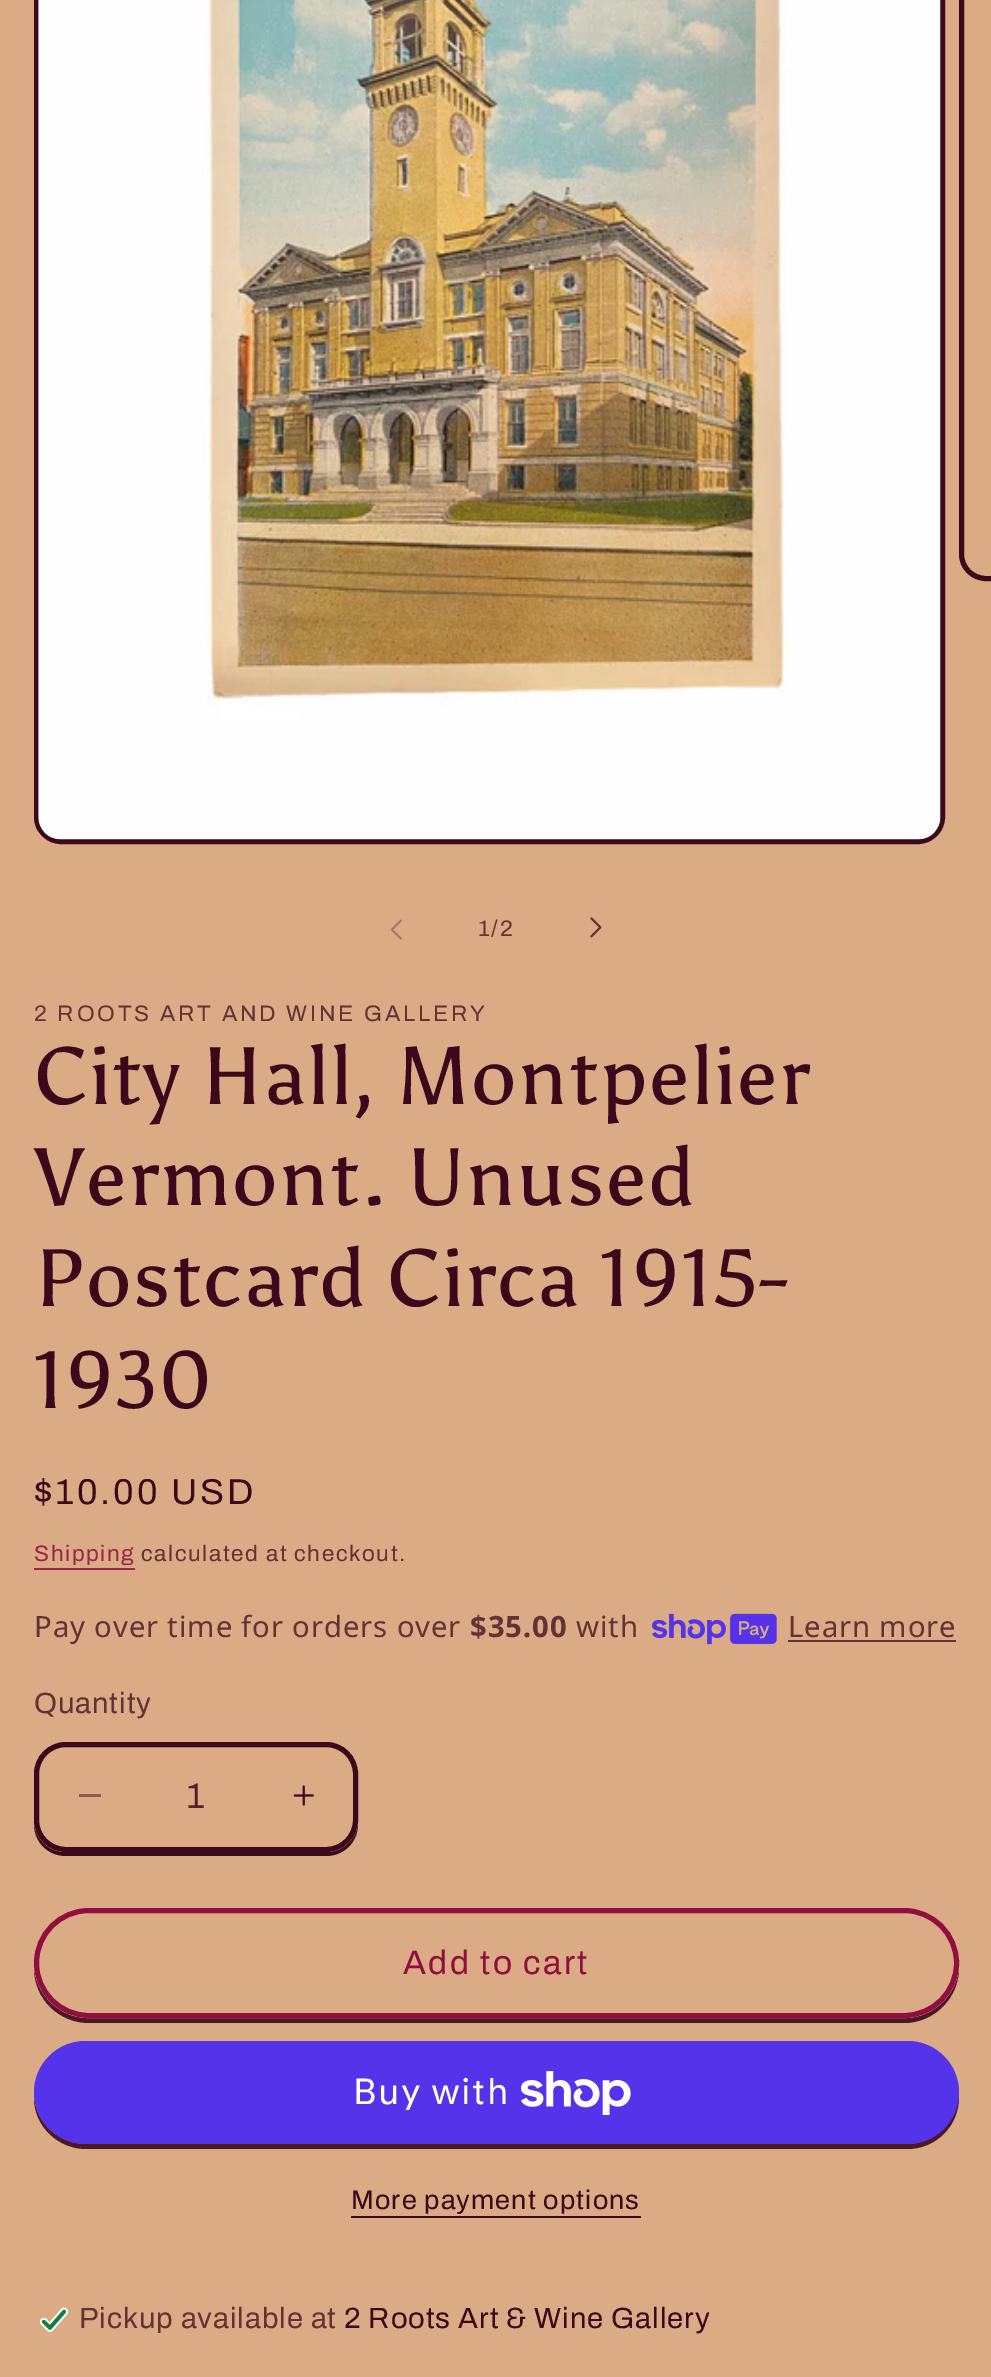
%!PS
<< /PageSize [991 2377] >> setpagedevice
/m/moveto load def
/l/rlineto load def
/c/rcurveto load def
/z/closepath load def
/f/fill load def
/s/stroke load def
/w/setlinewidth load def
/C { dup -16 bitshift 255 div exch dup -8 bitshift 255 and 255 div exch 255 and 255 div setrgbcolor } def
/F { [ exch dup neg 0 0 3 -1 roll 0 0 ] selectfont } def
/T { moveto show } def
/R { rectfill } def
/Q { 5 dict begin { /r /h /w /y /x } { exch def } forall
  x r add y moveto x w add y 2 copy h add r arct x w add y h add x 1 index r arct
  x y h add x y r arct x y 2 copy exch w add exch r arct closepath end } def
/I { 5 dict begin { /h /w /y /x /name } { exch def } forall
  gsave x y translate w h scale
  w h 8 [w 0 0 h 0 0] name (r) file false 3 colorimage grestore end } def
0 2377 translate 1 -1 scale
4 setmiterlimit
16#DAAB84 C
0 0 991 2377 R
16#3D081B C
5 w
36.5 -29.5 906 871 24.5 Q s
(1.rgb) 38 0 903 840 I
961.5 -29.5 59 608 24.5 Q s
(2.rgb) 390 919 12 21 I
/Archivo-Regular 22.5 F
16#643135 C
478 936 m 1.6 0 (1/2) ashow
(3.rgb) 590 917 12 21 I
34 1021 m 2.9 0 (2 ROOTS ART AND WINE GALLERY) ashow
/Asul-Regular 81 F
16#3D081B C
34 1104 m 1.6 0 (City Hall, Montpelier) ashow
34 1205 m 1.6 0 (Vermont. Unused) ashow
34 1306 m 1.6 0 (Postcard Circa 1915-) ashow
34 1408 m 1.6 0 (1930) ashow
/Archivo-Regular 36 F
34 1504 m 2.9 0 ($10.00 USD) ashow
/Archivo-Regular 22.5 F
16#9C2649 C
34 1561 m 1.6 0 (Shipping) ashow
34 1568 101 2 R
16#643135 C
141 1561 m 1.6 0 (calculated at checkout.) ashow
/NotoSans-Regular 29.25 F
34 1637 m .9 0 (Pay over time for orders over) ashow
/NotoSans-Bold 29.25 F
470 1637 m .9 0 ($35.00) ashow
/NotoSans-Regular 29.25 F
576 1637 m .9 0 (with) ashow
(4.rgb) 652 1613 125 32 I
788 1637 m .9 0 (Learn more) ashow
788 1640 168 2 R
/Archivo-Regular 29.25 F
34 1713 m .9 0 (Quantity) ashow
16#3D081B C
34 1824 m 0 18 14 32 32 32 c 260 0 l 18 0 32 -14 32 -32 c 0 -50 l 0 46 l 0 18 -14 32 -32 32 c -261 0 l -16 0 -29 -12 -31 -28 c z f
16#DAAB84 C
34 1742 324 110 32 Q f
16#8C5A50 C
79 1794 22 3 R
(5.rgb) 293 1785 21 21 I
16#3D081B C
36.5 1744.5 319 105 29.5 Q s
/Archivo-Regular 36 F
16#55202B C
(1) 186 1808 T
16#4D1826 C
34 1968 m 0 31 25 55 55 55 c 815 0 l 30 0 55 -25 55 -55 c -1 -8 l 0 3 l 0 31 -24 55 -55 55 c -814 0 l -29 0 -52 -22 -55 -50 c z f
16#DAAB84 C
34 1908 925 110 55 Q f
36.5 1910.5 920 105 52.5 Q s
16#910F3F C
36.5 1910.5 920 105 52.5 Q s
/Archivo-Regular 33.75 F
403 1974 m 2.25 0 (Add to cart) ashow
16#4D1826 C
34 2098 m 0 28 24 51 52 51 c 821 0 l 29 0 52 -23 52 -52 c -1 -8 l 0 3 l 0 29 -23 52 -51 52 c -821 0 l -27 0 -49 -20 -52 -46 c z f
16#5433EB C
34 2041 925 103 51.5 Q f
/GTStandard-Regular 36 F
16#FFFFFF C
353 2104 m 1.25 0 (Buy with) ashow
(6.rgb) 521 2071 110 44 I
/Archivo-Regular 27 F
16#3D081B C
351 2209 m 1.1 0 (More payment options) ashow
351 2216 290 2 R
(7.rgb) 39 2307 30 25 I
/Archivo-Regular 29.25 F
16#643135 C
79 2328 m .9 0 (Pickup available at) ashow
16#3D081B C
344 2328 m .9 0 (2 Roots Art & Wine Gallery) ashow
showpage
